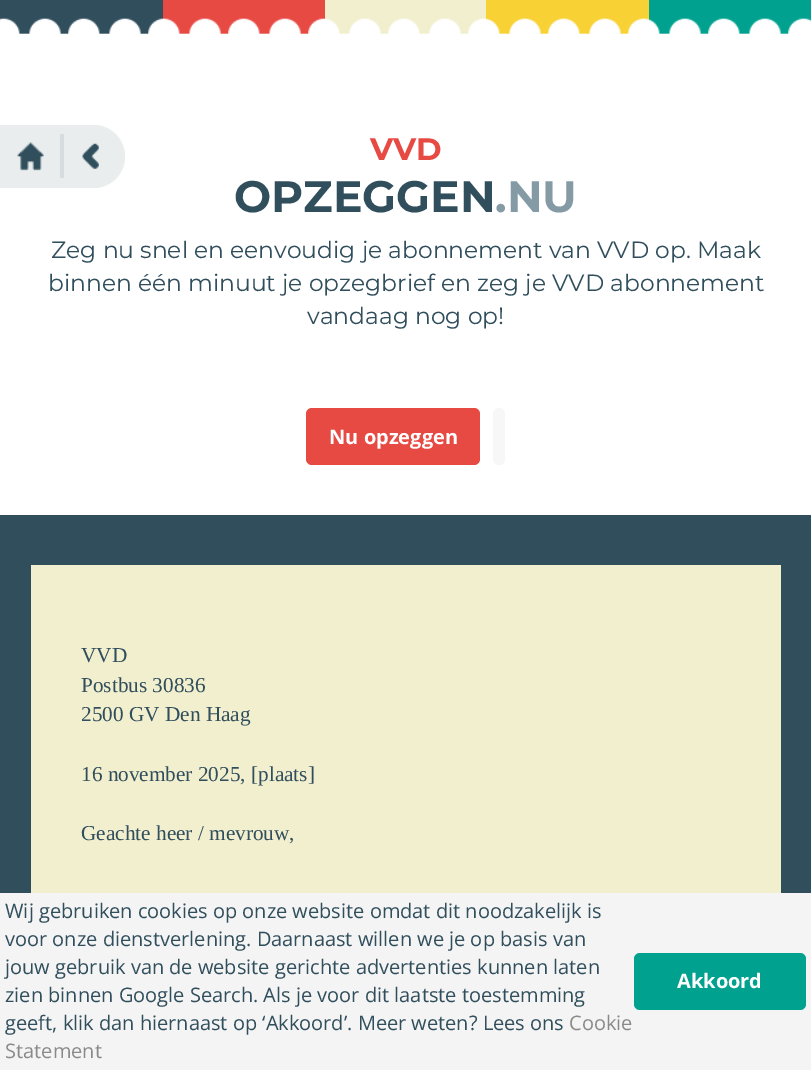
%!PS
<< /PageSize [811 1070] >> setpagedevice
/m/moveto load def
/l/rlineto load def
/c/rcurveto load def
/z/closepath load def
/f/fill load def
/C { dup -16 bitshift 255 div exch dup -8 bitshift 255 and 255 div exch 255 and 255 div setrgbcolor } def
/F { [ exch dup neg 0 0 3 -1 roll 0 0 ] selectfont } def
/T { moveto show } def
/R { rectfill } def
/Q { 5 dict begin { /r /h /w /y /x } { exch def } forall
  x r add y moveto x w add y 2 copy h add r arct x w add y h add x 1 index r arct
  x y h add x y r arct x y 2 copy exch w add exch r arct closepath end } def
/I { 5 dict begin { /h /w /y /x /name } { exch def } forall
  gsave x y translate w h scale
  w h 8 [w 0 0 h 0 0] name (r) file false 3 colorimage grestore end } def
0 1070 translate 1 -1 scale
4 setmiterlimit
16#FFFFFF C
0 0 811 1070 R
16#EAEDEE C
0 125 m 93.5 0 l 17.5 0 31.5 14 31.5 31.5 c 0 17.5 -14 31.5 -31.5 31.5 c -93.5 0 l z f
(1.rgb) 17 142 27 29 I
16#D7DDDF C
60 134 4 44 R
(2.rgb) 82 143 17 26 I
16#304E5C C
0 0 163 34 R
16#E74943 C
163 0 162 34 R
16#F2EFCF C
325 0 161 34 R
16#F8D135 C
486 0 163 34 R
16#00A18F C
649 0 162 34 R
(3.rgb) 0 18 811 32 I
/Montserrat-Bold 31 F
16#E74943 C
(VVD) 370 160 T
/Montserrat-Bold 44 F
16#304E5C C
(OPZEGGEN) 234 212 T
16#849BA6 C
(.NU) 495 212 T
/Montserrat-Regular 23.4 F
16#304E5C C
(Zeg nu snel en eenvoudig je abonnement van VVD op. Maak) 51 258 T
(binnen één minuut je opzegbrief en zeg je VVD abonnement) 48 291 T
(vandaag nog op!) 307 324 T
16#E74943 C
306 408 174 57 6 Q f
/OpenSans-Bold 20 F
16#FFFFFF C
(Nu opzeggen) 329 444 T
16#F7F7F7 C
493 408 12 57 6 Q f
16#304E5C C
0 515 811 378 R
16#F2EFCF C
31 565 750 328 R
/LiberationSerif-Regular 21.25 F
16#304E5C C
(VVD) 81 662 T
(Postbus 30836) 81 692 T
(2500 GV Den Haag) 81 721 T
(16 november 2025, [plaats]) 81 781 T
(Geachte heer / mevrouw,) 81 840 T
16#F4F4F4 C
0 893 811 177 R
/OpenSans-Regular 20 F
16#304E5C C
(Wij gebruiken cookies op onze website omdat dit noodzakelijk is) 5 918 T
(voor onze dienstverlening. Daarnaast willen we je op basis van) 5 946 T
(jouw gebruik van de website gerichte advertenties kunnen laten) 5 974 T
(zien binnen Google Search. Als je voor dit laatste toestemming) 5 1002 T
(geeft, klik dan hiernaast op ‘Akkoord’. Meer weten? Lees ons) 5 1030 T
16#8A8A8A C
(Cookie) 569 1030 T
(Statement) 5 1058 T
16#00A18F C
634 953 172 57 6 Q f
/OpenSans-Bold 20 F
16#FFFFFF C
(Akkoord) 677 988 T
showpage
